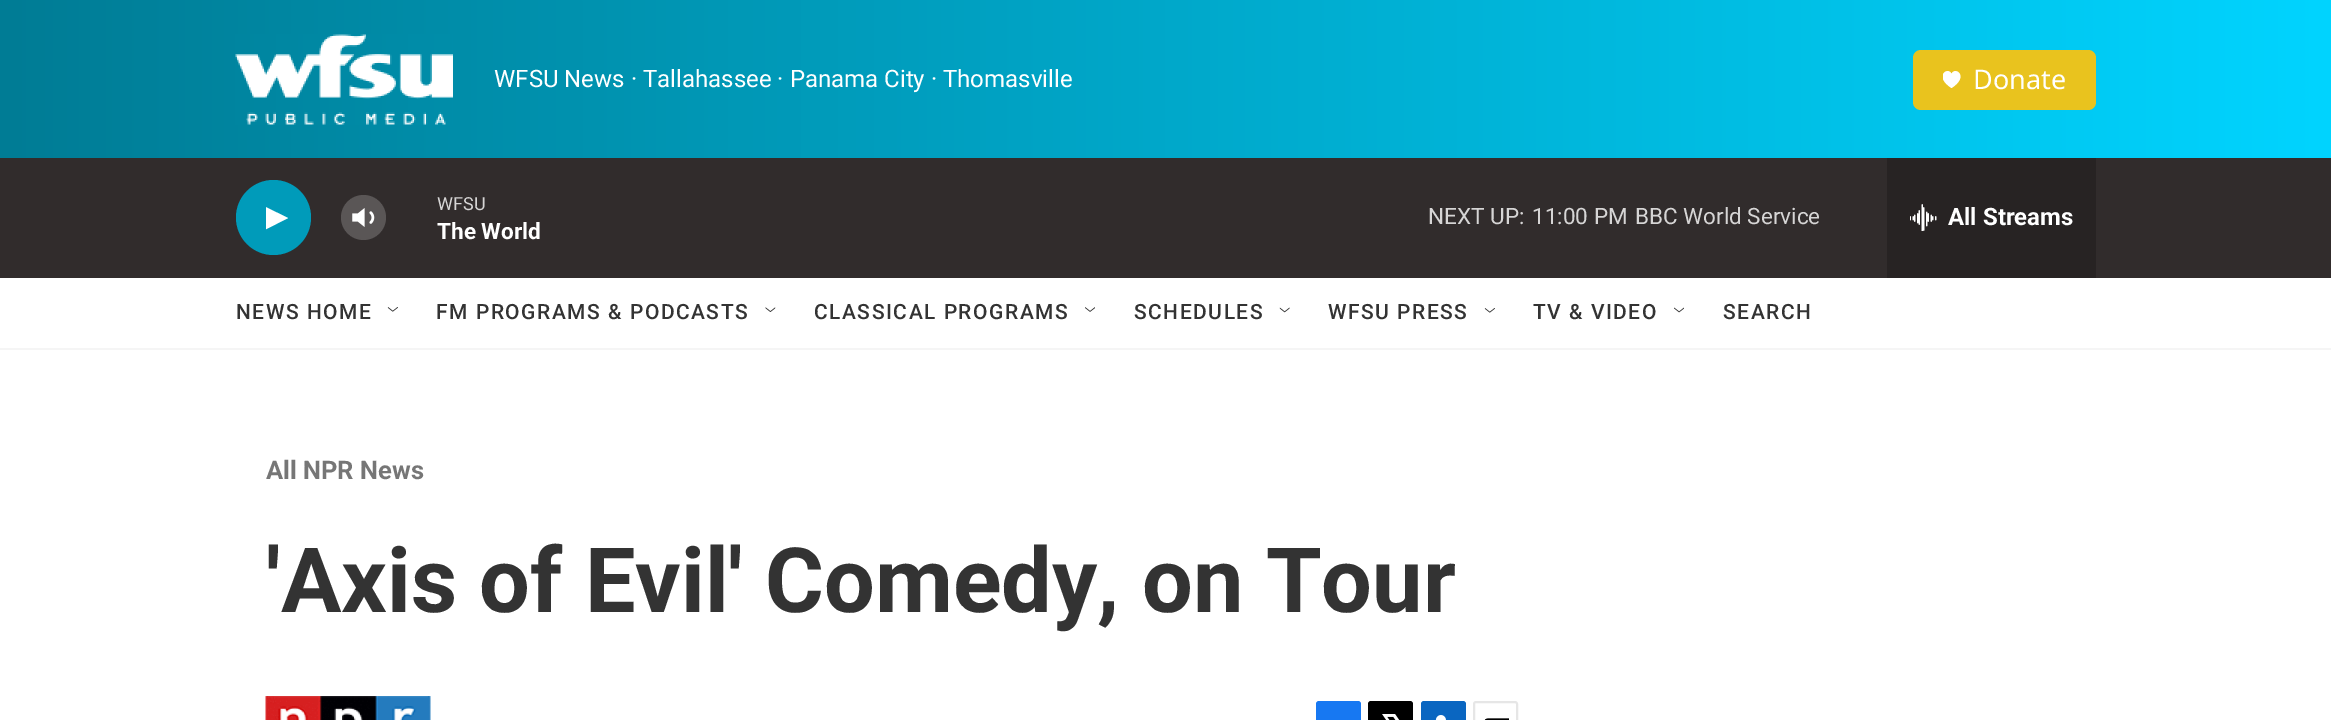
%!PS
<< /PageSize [2331 720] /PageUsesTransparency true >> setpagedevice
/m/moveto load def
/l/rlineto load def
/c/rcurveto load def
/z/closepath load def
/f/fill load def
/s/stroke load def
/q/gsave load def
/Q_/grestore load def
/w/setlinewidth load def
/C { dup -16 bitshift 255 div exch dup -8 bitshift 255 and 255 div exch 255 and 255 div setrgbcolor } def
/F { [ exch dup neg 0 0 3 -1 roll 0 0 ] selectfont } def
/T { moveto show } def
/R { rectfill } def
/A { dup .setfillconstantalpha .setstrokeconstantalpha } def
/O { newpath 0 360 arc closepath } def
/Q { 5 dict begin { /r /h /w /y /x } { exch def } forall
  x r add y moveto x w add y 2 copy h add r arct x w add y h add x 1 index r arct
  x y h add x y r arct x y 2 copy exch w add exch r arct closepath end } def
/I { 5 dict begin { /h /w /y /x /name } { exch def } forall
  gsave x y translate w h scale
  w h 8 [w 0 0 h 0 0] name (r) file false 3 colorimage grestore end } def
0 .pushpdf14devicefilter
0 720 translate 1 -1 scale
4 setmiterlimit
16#FFFFFF C
0 0 2331 720 R
q 0 0 m 2331 0 l 0 158 l -2331 0 l z clip newpath
<< /ShadingType 2 /ColorSpace /DeviceRGB /Coords [0 174 2331 174] /Extend [true true] /Function << /FunctionType 3 /Domain [0 1] /Functions [<< /FunctionType 2 /Domain [0 1] /C0 [0 .486 .584] /C1 [0 .608 .729] /N 1 >> << /FunctionType 2 /Domain [0 1] /C0 [0 .608 .729] /C1 [0 .831 1] /N 1 >>] /Bounds [.35] /Encode [0 1 0 1] >> >> shfill Q_
16#F5F5F5 C
0 348 2331 2 R
(1.rgb) 235 34 218 91 I
/Roboto-Regular 24 F
16#FFFFFF C
(WFSU News · Tallahassee · Panama City · Thomasville) 494 87 T
16#E9C31E C
1913 50 183 60 8 Q f
q
1943 71 18 18 rectclip
16#FFFFFF C
1951.5 74 m -3 -8 -18.5 2 0 14 c 18.5 -12 3 -22 0 -14 c z f
Q_
/NotoSans-Regular 27 F
16#FFFFFF C
(Donate) 1973 89 T
16#312C2C C
0 158 2331 120 R
16#009BBA C
273.5 217.5 37.5 O f
q
266 204 22 29 rectclip
16#FFFFFF C
265.5 207 m 22.5 11 l -22.5 11.5 l z f
Q_
(2.rgb) 352 208 23 19 I
0.2 A
16#FFFFFF C
363.5 217.5 22.5 O f
/Roboto-Regular 18 F
1 A
16#D6D5D5 C
(WFSU) 437 210 T
/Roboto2-Bold 22.5 F
16#FFFFFF C
(The World) 437 239 T
/Roboto-Regular 22.5 F
16#D6D5D5 C
(NEXT UP:) 1428 224 T
(11:00 PM) 1532 224 T
(BBC World Service) 1635 224 T
16#272323 C
1887 158 209 120 R
(3.rgb) 1910 204 27 27 I
/Roboto2-Bold 24 F
16#FFFFFF C
(All Streams) 1948 225 T
/Roboto-Medium 21 F
16#333333 C
236 319 m 1.5 0 (NEWS HOME) ashow
(4.rgb) 387 307 11 5 I
436 319 m 1.5 0 (FM PROGRAMS & PODCASTS) ashow
(5.rgb) 765 307 11 5 I
814 319 m 1.5 0 (CLASSICAL PROGRAMS) ashow
(6.rgb) 1085 307 10 5 I
1134 319 m 1.5 0 (SCHEDULES) ashow
(7.rgb) 1279 307 11 6 I
1328 319 m 1.5 0 (WFSU PRESS) ashow
(8.rgb) 1484 308 11 5 I
1533 319 m 1.5 0 (TV & VIDEO) ashow
(9.rgb) 1674 307 10 6 I
1723 319 m 1.5 0 (SEARCH) ashow
/Roboto-Bold 25.5 F
16#767676 C
(All NPR News) 266 479 T
/Roboto-Bold 90 F
16#333333 C
('Axis of Evil' Comedy, on Tour) 266 612 T
(10.rgb) 265 696 166 24 I
16#1778F2 C
1316 701 45 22 3 Q f
16#000000 C
1368 701 45 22 3 Q f
(11.rgb) 1382 714 18 6 I
16#0A66C1 C
1421 701 45 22 3 Q f
(12.rgb) 1435 715 11 5 I
16#E6E6E6 C
2 w
1474 702 43 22 2 Q s
(13.rgb) 1484 718 25 2 I
.poppdf14devicefilter showpage
